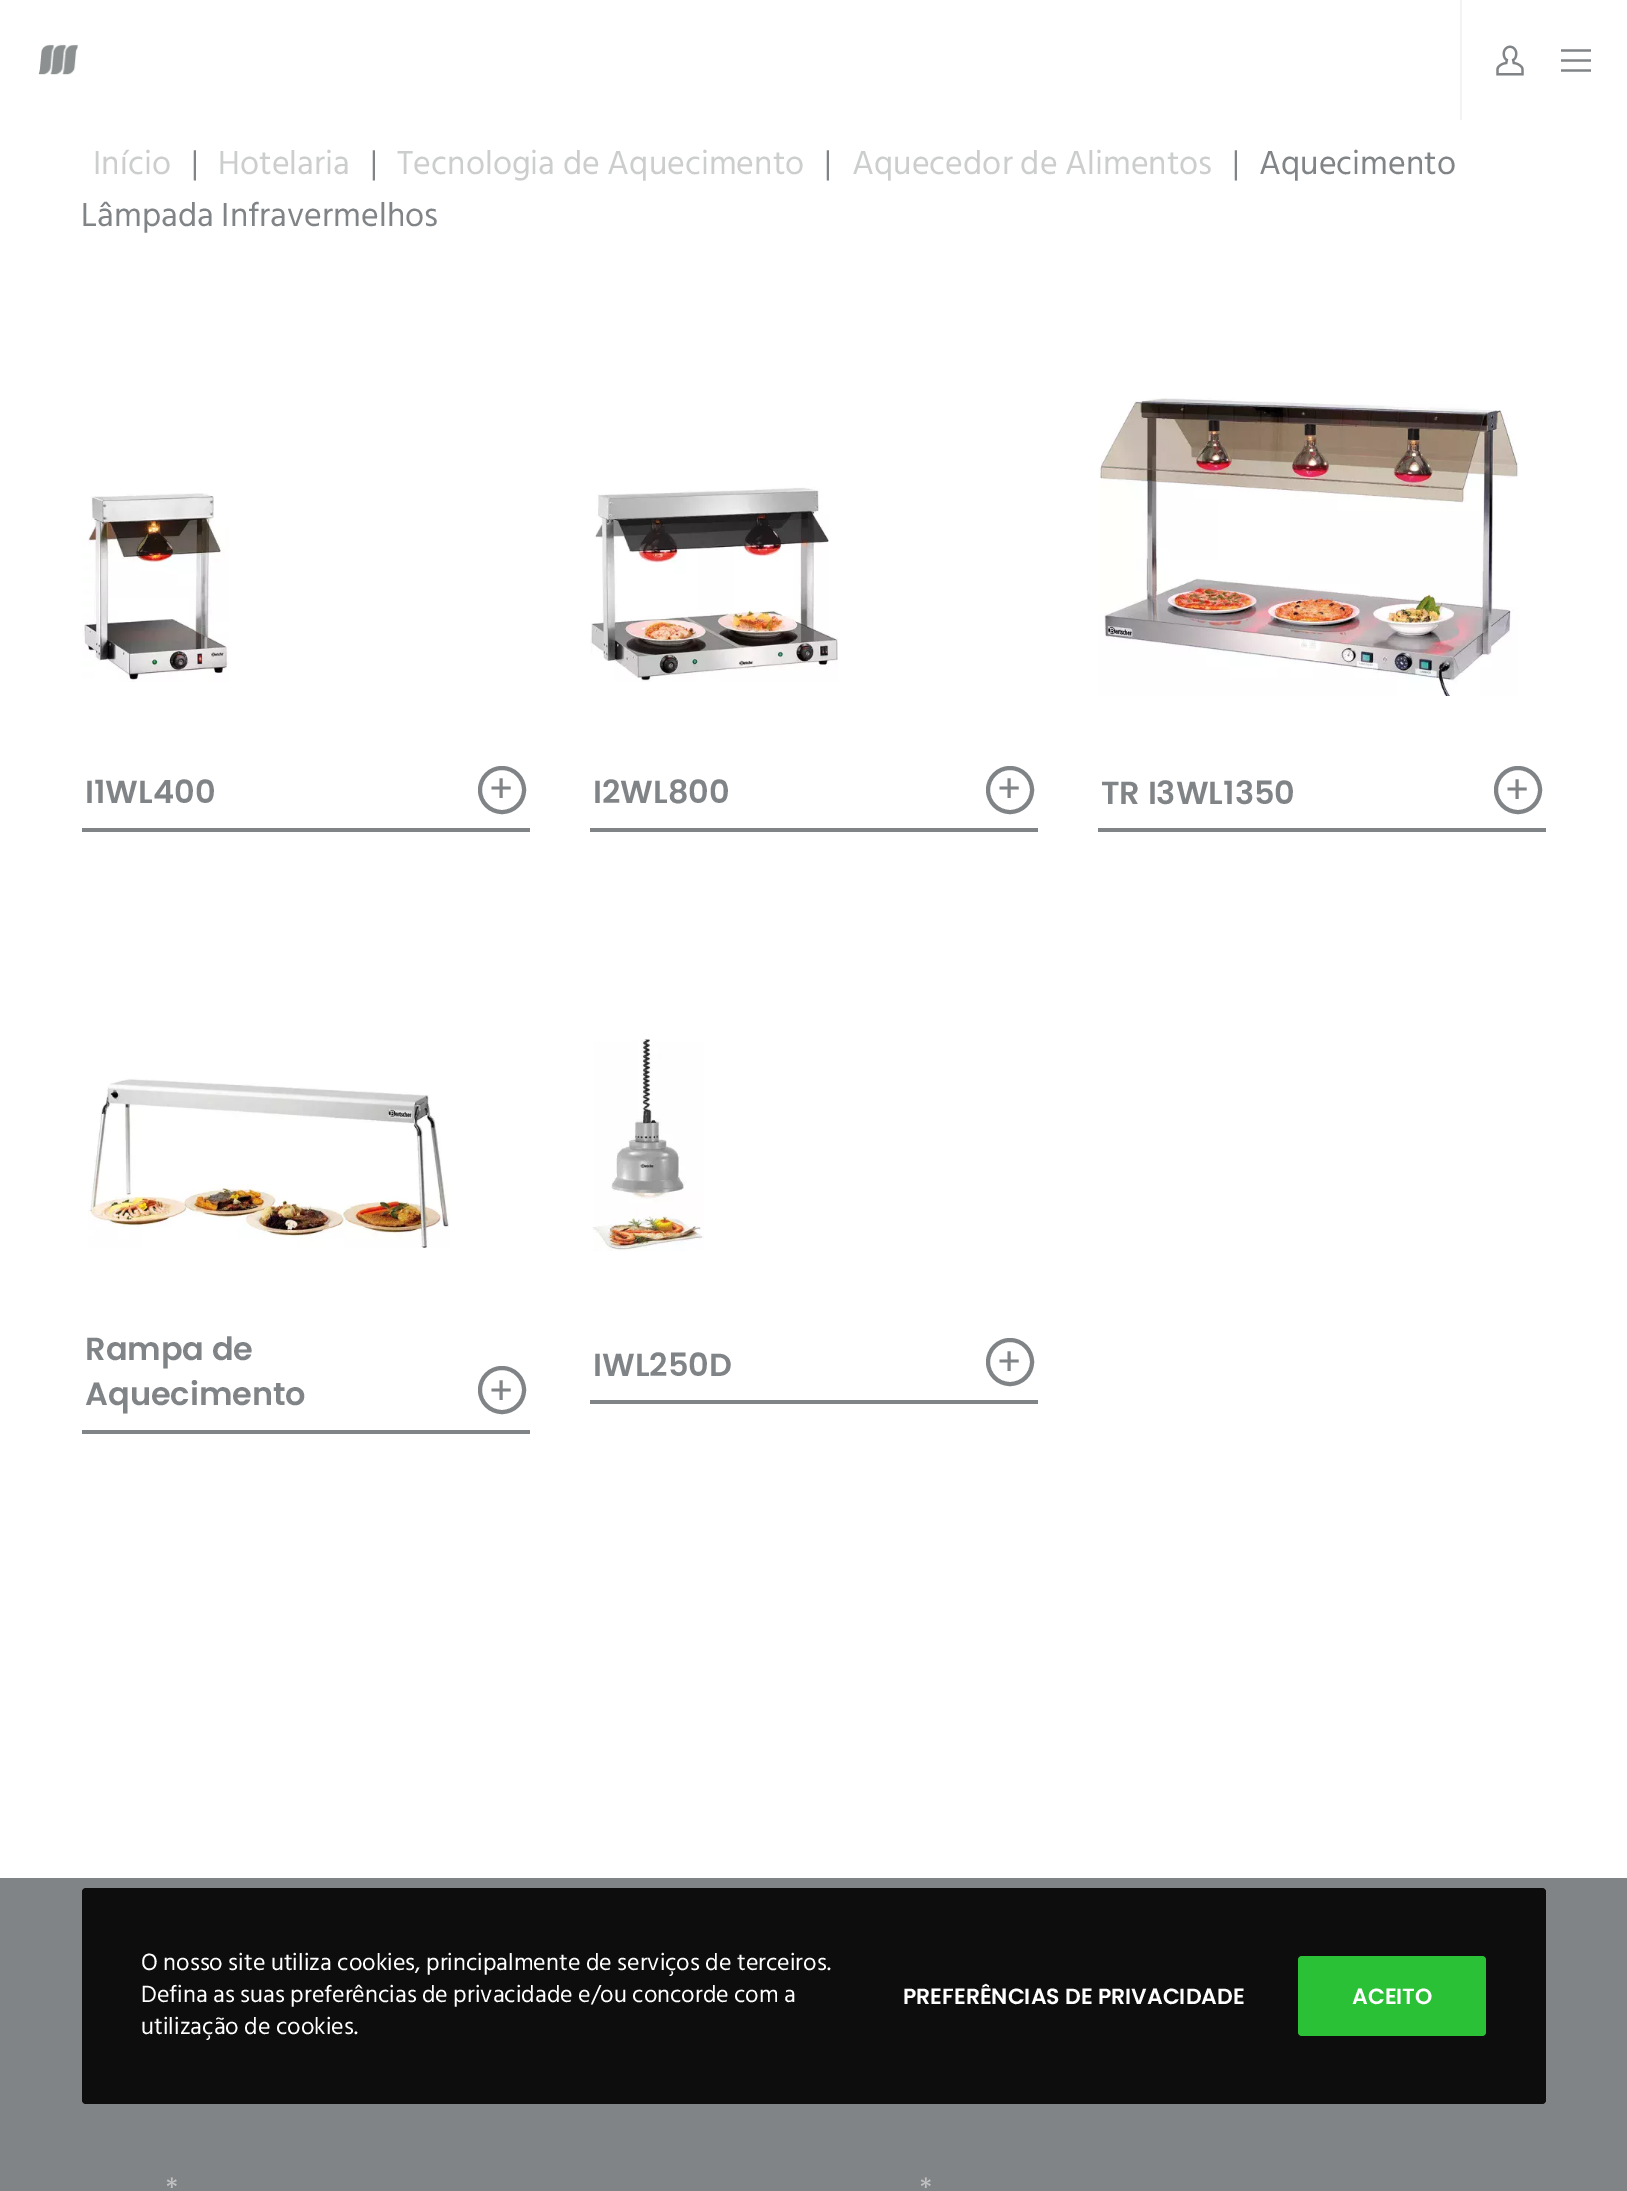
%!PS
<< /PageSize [1627 2191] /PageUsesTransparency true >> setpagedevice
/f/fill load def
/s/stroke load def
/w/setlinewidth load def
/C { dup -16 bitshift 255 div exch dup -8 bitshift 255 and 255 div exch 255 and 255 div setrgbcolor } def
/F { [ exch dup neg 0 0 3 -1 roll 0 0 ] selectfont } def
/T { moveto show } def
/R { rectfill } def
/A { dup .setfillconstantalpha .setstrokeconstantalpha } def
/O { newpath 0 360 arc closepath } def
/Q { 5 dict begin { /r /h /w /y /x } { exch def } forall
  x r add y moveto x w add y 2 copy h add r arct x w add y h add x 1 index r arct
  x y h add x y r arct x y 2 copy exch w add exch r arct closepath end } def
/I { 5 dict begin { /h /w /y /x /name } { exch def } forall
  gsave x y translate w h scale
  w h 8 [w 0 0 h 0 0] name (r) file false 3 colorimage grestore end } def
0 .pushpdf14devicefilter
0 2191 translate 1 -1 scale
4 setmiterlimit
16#FFFFFF C
0 0 1627 2191 R
(1.rgb) 38 44 40 31 I
16#F2F3F3 C
1460 0 2 120 R
(2.rgb) 1496 45 28 31 I
(3.rgb) 1561 49 30 23 I
/HindSiliguri-Regular 34 F
16#CCCECE C
(Início) 93 174 T
16#818486 C
(|) 191 174 T
16#CCCECE C
(Hotelaria) 218 174 T
16#818486 C
(|) 370 174 T
16#CCCECE C
(Tecnologia de Aquecimento) 397 174 T
16#818486 C
(|) 824 174 T
16#CCCECE C
(Aquecedor de Alimentos) 852 174 T
16#818486 C
(|) 1232 174 T
(Aquecimento) 1259 174 T
(Lâmpada Infravermelhos) 81 226 T
(4.rgb) 82 493 147 189 I
82 828 448 4 R
/Poppins-SemiBold 32 F
(I1WL400) 85 803 T
4 w
502 790 22 O s
/HindSiliguri-Regular 44 F
(+) 489 803 T
(5.rgb) 590 487 248 195 I
590 828 448 4 R
/Poppins-SemiBold 32 F
(I2WL800) 593 803 T
1010 790 22 O s
/HindSiliguri-Regular 44 F
(+) 997 803 T
(6.rgb) 1098 398 421 298 I
1098 828 448 4 R
/Poppins-SemiBold 32 F
(TR I3WL1350) 1101 804 T
1518 790 22 O s
/HindSiliguri-Regular 44 F
(+) 1505 804 T
(7.rgb) 88 1078 362 170 I
82 1430 448 4 R
/Poppins-SemiBold 32 F
(Rampa de) 85 1360 T
(Aquecimento) 85 1405 T
502 1390 22 O s
/HindSiliguri-Regular 44 F
(+) 489 1405 T
(8.rgb) 593 1039 111 212 I
590 1400 448 4 R
/Poppins-SemiBold 32 F
(IWL250D) 593 1376 T
1010 1362 22 O s
/HindSiliguri-Regular 44 F
(+) 997 1376 T
0 1878 1627 313 R
/Poppins-Regular 28 F
16#C0C2C3 C
(*) 165 2198 T
(*) 919 2198 T
0.9 A
16#000000 C
82 1888 1464 216 4 Q f
/HindSiliguri-Regular 24 F
1 A
16#FFFFFF C
(O nosso site utiliza cookies, principalmente de serviços de terceiros.) 141 1970 T
(Defina as suas preferências de privacidade e/ou concorde com a) 141 2002 T
(utilização de cookies.) 141 2034 T
/Poppins-SemiBold 22 F
(PREFERÊNCIAS DE PRIVACIDADE) 903 2004 T
16#2BC137 C
1298 1956 188 80 4 Q f
16#FFFFFF C
(ACEITO) 1352 2004 T
.poppdf14devicefilter showpage
